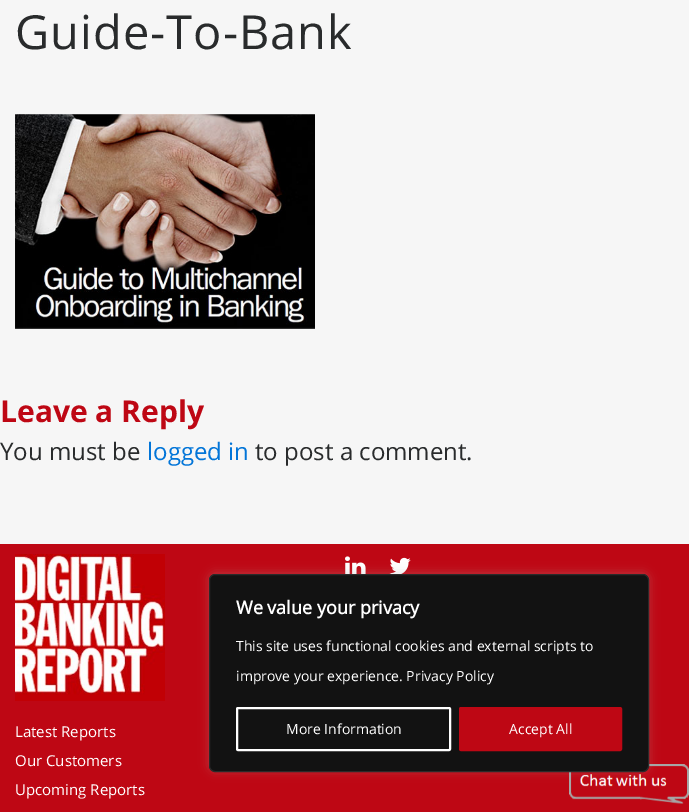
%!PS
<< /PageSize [689 812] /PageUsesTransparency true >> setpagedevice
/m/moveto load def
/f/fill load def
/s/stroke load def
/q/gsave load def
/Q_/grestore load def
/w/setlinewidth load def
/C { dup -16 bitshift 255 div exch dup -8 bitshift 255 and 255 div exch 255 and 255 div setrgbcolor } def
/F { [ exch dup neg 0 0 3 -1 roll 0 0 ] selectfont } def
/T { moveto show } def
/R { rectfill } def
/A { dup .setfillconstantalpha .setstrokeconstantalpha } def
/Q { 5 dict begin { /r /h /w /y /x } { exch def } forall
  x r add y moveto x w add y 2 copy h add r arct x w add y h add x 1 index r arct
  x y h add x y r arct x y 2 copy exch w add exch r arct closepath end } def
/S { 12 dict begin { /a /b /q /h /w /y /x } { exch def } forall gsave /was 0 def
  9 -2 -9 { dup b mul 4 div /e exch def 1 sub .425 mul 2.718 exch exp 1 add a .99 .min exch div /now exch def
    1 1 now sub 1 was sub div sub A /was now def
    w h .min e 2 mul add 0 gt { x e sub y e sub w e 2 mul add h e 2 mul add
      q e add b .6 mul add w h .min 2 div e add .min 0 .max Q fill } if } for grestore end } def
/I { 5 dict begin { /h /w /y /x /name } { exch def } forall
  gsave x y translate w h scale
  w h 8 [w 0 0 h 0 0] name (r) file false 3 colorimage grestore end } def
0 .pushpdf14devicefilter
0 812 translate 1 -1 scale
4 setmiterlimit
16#F6F6F6 C
0 0 689 812 R
/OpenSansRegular-Regular 47 F
16#292B2C C
15 49 m 1 0 (Guide-To-Bank) ashow
(1.rgb) 15 114 300 215 I
/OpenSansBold-Bold 30 F
16#BE0714 C
(Leave a Reply) 0 422 T
/OpenSansRegular-Regular 24 F
16#292B2C C
(You must be) 0 460 T
16#0275D8 C
(logged in) 147 460 T
16#292B2C C
(to post a comment.) 255 460 T
16#BE0714 C
0 544 689 268 R
(2.rgb) 15 554 150 147 I
(3.rgb) 345 556 21 18 I
(4.rgb) 389 557 22 17 I
/OpenSansRegular-Regular 15 F
16#FFFFFF C
(Latest Reports) 15 737 T
(Our Customers) 15 766 T
(Upcoming Reports) 15 795 T
(5.rgb) 569 764 120 40 I
16#ACABAB C
209 573 440 198 6 5 .3 S
16#121212 C
209.5 574.5 439 197 5.5 Q q f Q_
16#2A2A2A C
s
/OpenSansRegular-Bold 18 F
16#FFFFFF C
(We value your privacy) 236 614 T
/OpenSansRegular-Regular 14 F
(This site uses functional cookies and external scripts to) 236 651 T
(improve your experience. Privacy Policy) 236 681 T
2 w
237 708 213 42 1 Q s
(More Information) 286 734 T
16#BE0714 C
460 708 161 42 1 Q q f Q_
s
16#FFFFFF C
(Accept All) 509 734 T
.poppdf14devicefilter showpage
